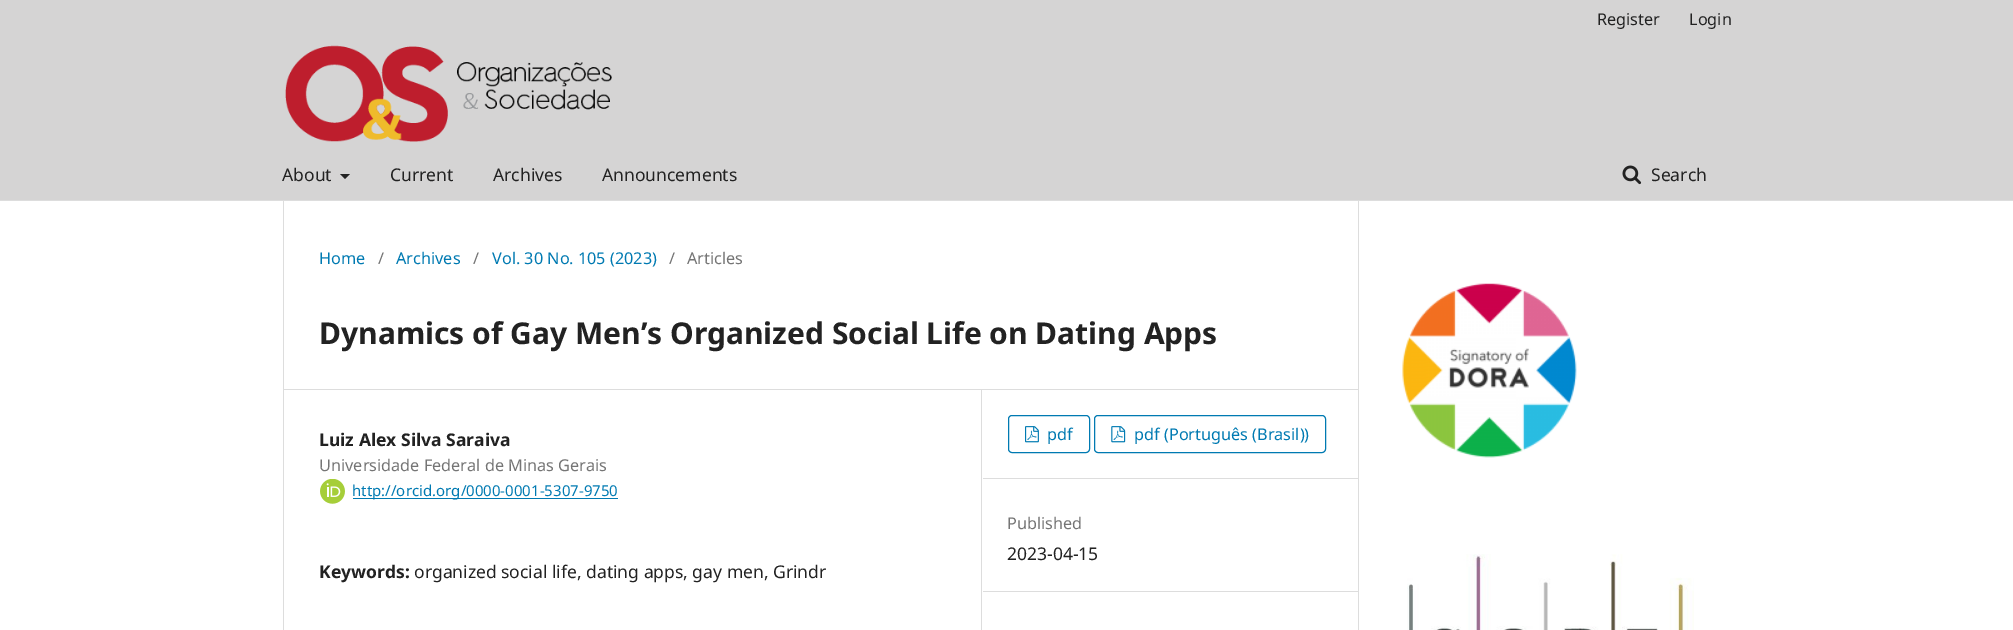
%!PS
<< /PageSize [2013 630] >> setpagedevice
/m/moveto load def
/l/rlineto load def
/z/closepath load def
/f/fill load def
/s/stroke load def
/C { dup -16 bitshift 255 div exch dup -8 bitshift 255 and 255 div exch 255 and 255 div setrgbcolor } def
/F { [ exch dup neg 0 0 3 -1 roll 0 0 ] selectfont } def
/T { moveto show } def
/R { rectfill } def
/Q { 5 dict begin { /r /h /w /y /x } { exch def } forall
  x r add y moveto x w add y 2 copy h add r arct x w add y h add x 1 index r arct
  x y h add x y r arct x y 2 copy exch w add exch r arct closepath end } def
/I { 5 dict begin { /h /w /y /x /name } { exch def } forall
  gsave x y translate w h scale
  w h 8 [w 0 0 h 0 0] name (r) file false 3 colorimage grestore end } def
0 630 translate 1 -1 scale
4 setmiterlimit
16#FFFFFF C
0 0 2013 630 R
16#D5D4D4 C
0 0 2013 200 R
16#DDDDDD C
0 200 2013 1 R
/NotoSans-Regular 16.25 F
16#222222 C
(Register) 1597 25 T
(Login) 1689 25 T
/NotoSans-Regular 17.5 F
(About) 282 181 T
340 174 m 10 0 l -5 5 l z f
(Current) 390 181 T
(Archives) 493 181 T
(Announcements) 602 181 T
(1.rgb) 1622 165 20 20 I
(Search) 1651 181 T
(2.rgb) 285 45 327 97 I
16#DDDDDD C
283 389 1075 1 R
283 201 1 429 R
/NotoSans-Regular 16.25 F
16#007AB2 C
(Home) 319 264 T
16#757575 C
(/) 378 264 T
16#007AB2 C
(Archives) 396 264 T
16#757575 C
(/) 473 264 T
16#007AB2 C
(Vol. 30 No. 105 \(2023\)) 492 264 T
16#757575 C
(/) 669 264 T
(Articles) 687 264 T
/NotoSans-Bold 30 F
16#222222 C
(Dynamics of Gay Men’s Organized Social Life on Dating Apps) 319 344 T
16#DDDDDD C
981 390 1 240 R
/NotoSans-Bold 17.5 F
16#222222 C
(Luiz Alex Silva Saraiva) 319 446 T
/NotoSans-Regular 16.25 F
16#757575 C
(Universidade Federal de Minas Gerais) 319 471 T
(3.rgb) 320 479 25 25 I
16#007AB2 C
353 498 265 1 R
/NotoSans-Regular 15 F
(http://orcid.org/0000-0001-5307-9750) 352 496 T
/NotoSans-Bold 17.5 F
16#222222 C
(Keywords:) 319 578 T
/NotoSans-Regular 17.5 F
(organized social life, dating apps, gay men, Grindr) 414 578 T
16#DDDDDD C
983 478 375 1 R
16#007AB2 C
1008.5 415.5 81 37 3.5 Q s
(4.rgb) 1025 426 14 17 I
/NotoSans-Regular 16.25 F
(pdf) 1047 440 T
1094.5 415.5 231 37 3.5 Q s
(5.rgb) 1111 426 15 17 I
(pdf \(Português \(Brasil\)\)) 1134 440 T
16#DDDDDD C
983 591 375 1 R
16#757575 C
(Published) 1007 529 T
/NotoSans-Regular 17.5 F
16#222222 C
(2023-04-15) 1007 560 T
16#DDDDDD C
1358 201 1 429 R
(6.rgb) 1402 283 175 175 I
(7.rgb) 1407 554 287 76 I
showpage
